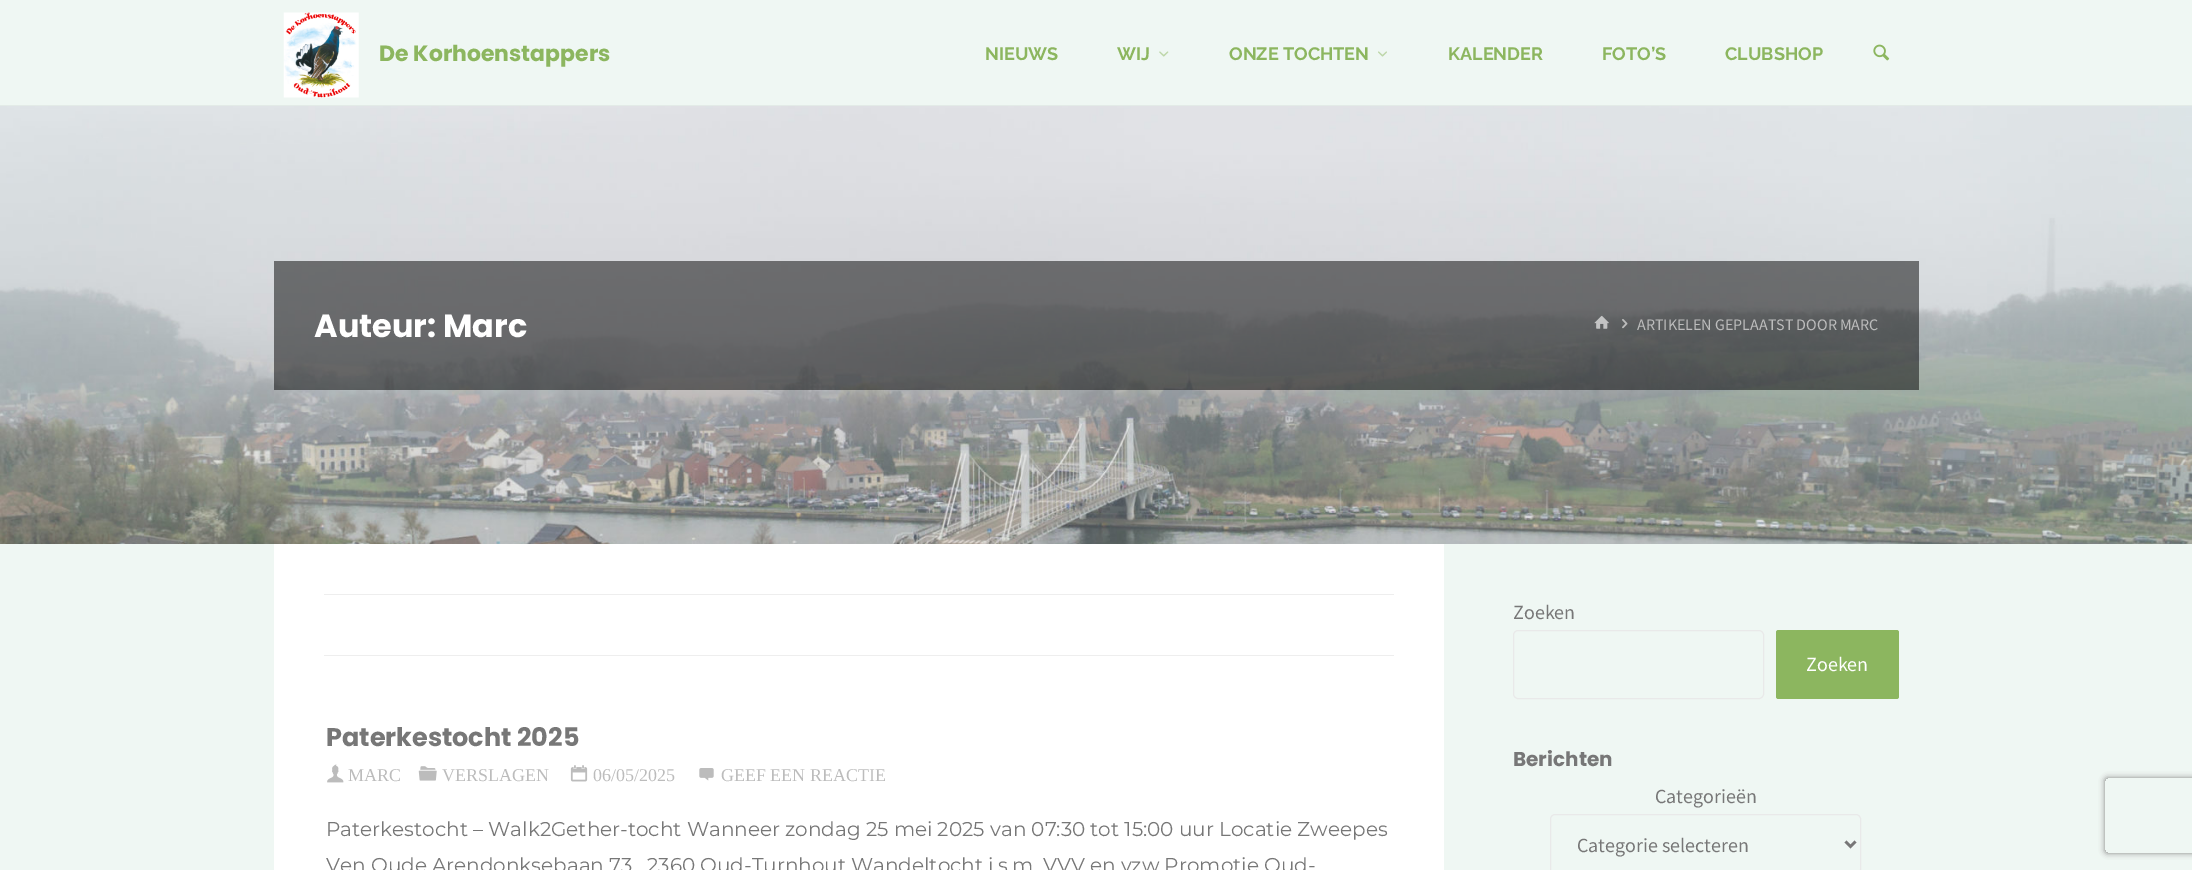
%!PS
<< /PageSize [2192 870] /PageUsesTransparency true >> setpagedevice
/m/moveto load def
/l/rlineto load def
/c/rcurveto load def
/z/closepath load def
/f/fill load def
/s/stroke load def
/q/gsave load def
/Q_/grestore load def
/w/setlinewidth load def
/C { dup -16 bitshift 255 div exch dup -8 bitshift 255 and 255 div exch 255 and 255 div setrgbcolor } def
/F { [ exch dup neg 0 0 3 -1 roll 0 0 ] selectfont } def
/T { moveto show } def
/R { rectfill } def
/A { dup .setfillconstantalpha .setstrokeconstantalpha } def
/Q { 5 dict begin { /r /h /w /y /x } { exch def } forall
  x r add y moveto x w add y 2 copy h add r arct x w add y h add x 1 index r arct
  x y h add x y r arct x y 2 copy exch w add exch r arct closepath end } def
/S { 12 dict begin { /a /b /q /h /w /y /x } { exch def } forall gsave /was 0 def
  9 -2 -9 { dup b mul 4 div /e exch def 1 sub .425 mul 2.718 exch exp 1 add a .99 .min exch div /now exch def
    1 1 now sub 1 was sub div sub A /was now def
    w h .min e 2 mul add 0 gt { x e sub y e sub w e 2 mul add h e 2 mul add
      q e add b .6 mul add w h .min 2 div e add .min 0 .max Q fill } if } for grestore end } def
/I { 5 dict begin { /h /w /y /x /name } { exch def } forall
  gsave x y translate w h scale
  w h 8 [w 0 0 h 0 0] name (r) file false 3 colorimage grestore end } def
0 .pushpdf14devicefilter
0 870 translate 1 -1 scale
4 setmiterlimit
16#EFF7F3 C
0 0 2192 870 R
16#E3EBE7 C
0 105 2192 1 R
(1.rgb) 283 12 76 86 I
/Poppins-Bold 22 F
16#8CB65F C
(De Korhoenstappers) 379 61 T
/Raleway-Bold 18 F
(NIEUWS) 985 60 T
(WIJ) 1117 60 T
(2.rgb) 1159 51 10 6 I
(ONZE TOCHTEN) 1229 60 T
(3.rgb) 1378 51 9 6 I
(KALENDER) 1448 60 T
(FOTO’S) 1602 60 T
(CLUBSHOP) 1725 60 T
(4.rgb) 1873 44 17 17 I
(5.rgb) 0 106 2192 438 I
0.5 A
16#000000 C
274 261 1645 129 R
/Poppins-Bold 32 F
1 A
16#FFFFFF C
(Auteur: Marc) 314 337 T
(6.rgb) 1594 315 15 14 I
(7.rgb) 1622 319 6 10 I
/SourceSansPro-Regular 16 F
16#BCBCBC C
(ARTIKELEN GEPLAATST DOOR MARC) 1637 330 T
16#FFFFFF C
274 544 1170 326 R
16#EEEEEE C
324 594 1070 1 R
324 655 1070 1 R
/Poppins-Bold 25.5 F
16#777777 C
(Paterkestocht 2025) 326 746 T
(8.rgb) 327 764 17 19 I
/LiberationSerif-Regular 18 F
16#BCBCBC C
(MARC) 348 781 T
(9.rgb) 418 766 19 15 I
(VERSLAGEN) 442 781 T
(10.rgb) 570 765 18 17 I
(06/05/2025) 593 781 T
(11.rgb) 699 768 15 13 I
(GEEF EEN REACTIE) 721 781 T
/Montserrat-Regular 20 F
16#777777 C
(Paterkestocht – Walk2Gether-tocht Wanneer zondag 25 mei 2025 van 07:30 tot 15:00 uur Locatie Zweepes) 326 836 T
(Ven Oude Arendonksebaan 73 , 2360 Oud-Turnhout Wandeltocht i.s.m. VVV en vzw Promotie Oud-) 326 872 T
/SourceSansPro-Regular 20 F
(Zoeken) 1513 619 T
16#E9E9E9 C
1513.5 630.5 250 68 4.5 Q s
16#8CB65F C
1776 630 123 69 2.5 Q f
16#FFFFFF C
(Zoeken) 1806 671 T
/Poppins-Bold 20 F
16#777777 C
(Berichten) 1513 766 T
/SourceSansPro-Regular 20 F
(Categorieën) 1655 803 T
16#E9E9E9 C
1550.5 814.5 310 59 4.5 Q s
16#777777 C
2.5 w
1845.5 841.5 m 5 5 l 5 -5 l s
(Categorie selecteren) 1577 852 T
q
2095 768 m 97 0 l 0 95 l -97 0 l z 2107.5 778 m 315 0 l 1.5 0 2.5 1 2.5 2.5 c 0 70 l 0 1.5 -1 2.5 -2.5 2.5 c -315 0 l -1.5 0 -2.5 -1 -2.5 -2.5 c 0 -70 l 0 -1.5 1 -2.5 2.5 -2.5 c z eoclip newpath
16#808080 C
2105 778 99 75 2.5 3 1 S
Q_
.poppdf14devicefilter showpage
